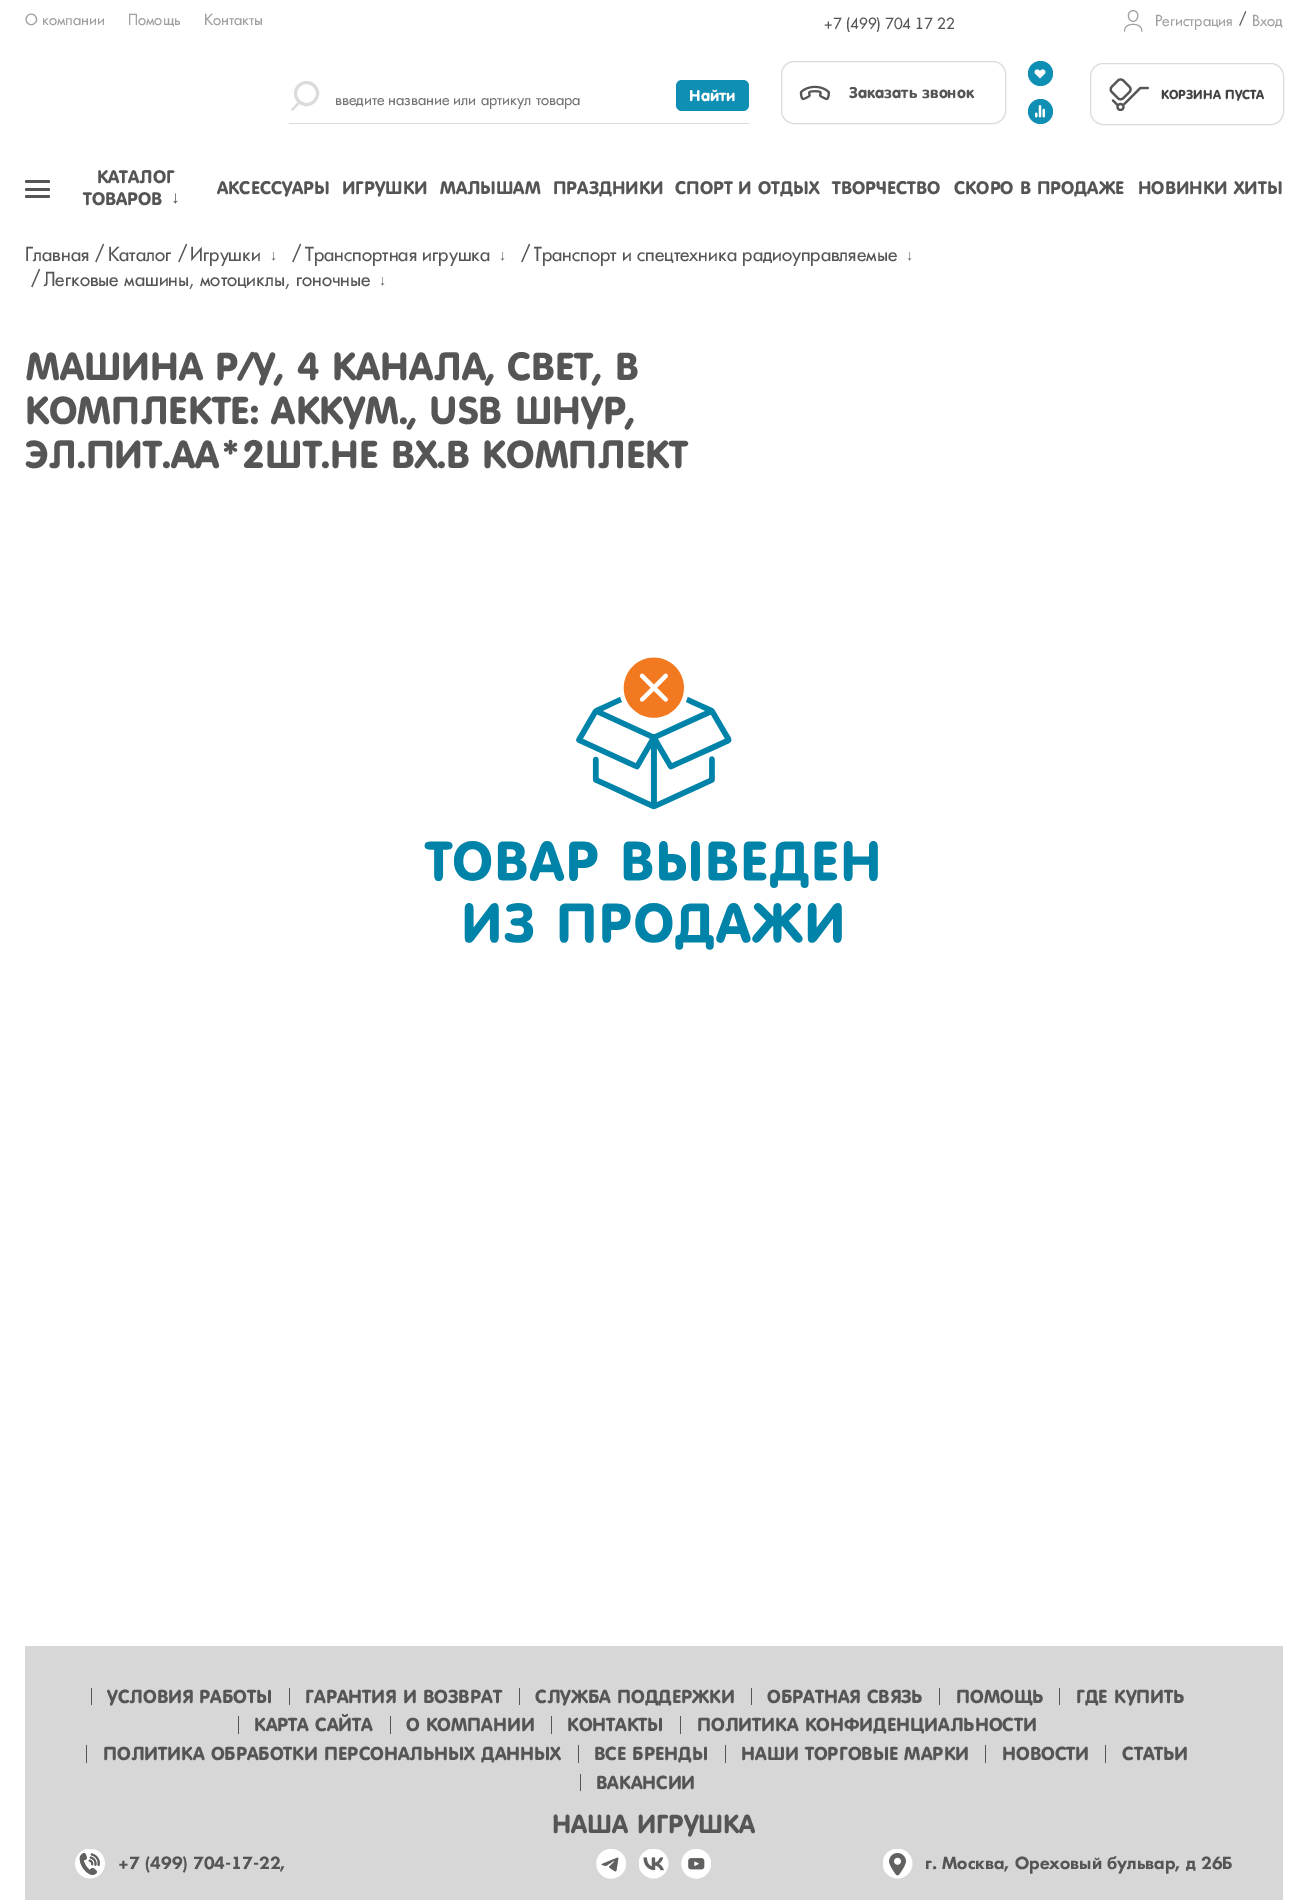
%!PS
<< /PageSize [1307 1900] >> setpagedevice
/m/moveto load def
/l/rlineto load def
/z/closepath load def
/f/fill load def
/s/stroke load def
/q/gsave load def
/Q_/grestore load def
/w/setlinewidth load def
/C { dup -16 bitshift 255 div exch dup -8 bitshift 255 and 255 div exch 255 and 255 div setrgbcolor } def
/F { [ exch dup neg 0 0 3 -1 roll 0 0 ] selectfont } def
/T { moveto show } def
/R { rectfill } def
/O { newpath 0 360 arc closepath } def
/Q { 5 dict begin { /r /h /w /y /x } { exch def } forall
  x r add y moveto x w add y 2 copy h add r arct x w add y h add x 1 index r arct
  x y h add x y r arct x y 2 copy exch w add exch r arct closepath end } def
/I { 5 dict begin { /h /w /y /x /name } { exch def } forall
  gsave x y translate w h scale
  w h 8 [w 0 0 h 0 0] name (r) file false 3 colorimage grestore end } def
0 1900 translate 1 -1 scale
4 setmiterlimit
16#FFFFFF C
0 0 1307 1900 R
/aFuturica-Regular 15 F
16#A0A0A0 C
(О компании) 25 25 T
(Помощь) 128 25 T
(Контакты) 204 25 T
16#555555 C
(+7 \(499\) 704 17 22) 824 29 T
(1.rgb) 1124 10 19 22 I
16#A0A0A0 C
(Регистрация) 1155 26 T
16#555555 C
(/) 1239 24 T
16#A0A0A0 C
(Вход) 1252 26 T
16#DBDBDB C
289 123 460 1 R
3 w
306.5 93.5 11 O s
291 109.5 m 7.5 -8 l 2 1.5 l -8 8 l z f
16#0F8FB3 C
676 80 73 31 6 Q f
/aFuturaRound-Bold 15 F
16#FFFFFF C
(Найти) 689 101 T
/aFuturica-Regular 15 F
16#757575 C
(введите название или артикул товара) 335 105 T
16#DBDBDB C
1 w
781.5 61.5 224 62 12.5 Q s
(2.rgb) 799 85 31 16 I
/aFuturaRound-Bold 15 F
16#555555 C
(Заказать звонок) 849 98 T
16#0F8FB3 C
1040.5 73.5 12.5 O f
(3.rgb) 1034 69 12 10 I
1040.5 111.5 12.5 O f
(4.rgb) 1035 105 10 13 I
16#DBDBDB C
1090.5 63.5 193 61 12.5 Q s
(5.rgb) 1109 78 40 33 I
/aFuturaRound-Bold 12.5 F
16#434343 C
(КОРЗИНА ПУСТА) 1161 99 T
16#555555 C
25 180 25 3 1.5 Q f
25 188 25 3 1.5 Q f
25 195 25 3 1.5 Q f
/aFuturaRound-Bold 17.5 F
(КАТАЛОГ) 97 183 T
(ТОВАРОВ) 83 205 T
/LiberationSans-Bold 17.5 F
(↓) 171 203 T
/aFuturaRound-Bold 17.5 F
(АКСЕССУАРЫ) 217 194 T
(ИГРУШКИ) 342 194 T
(МАЛЫШАМ) 440 194 T
(ПРАЗДНИКИ) 553 194 T
(СПОРТ И ОТДЫХ) 675 194 T
(ТВОРЧЕСТВО) 832 194 T
(СКОРО В ПРОДАЖЕ) 954 194 T
(НОВИНКИ) 1138 194 T
(ХИТЫ) 1234 194 T
/aFuturica-Regular 18.75 F
(Главная) 25 261 T
(/) 95 260 T
(Каталог) 108 261 T
(/) 178 260 T
(Игрушки) 190 261 T
/LiberationSans-Regular 14 F
(↓) 270 260 T
/aFuturica-Regular 18.75 F
(/) 292 260 T
(Транспортная игрушка) 305 261 T
/LiberationSans-Regular 14 F
(↓) 499 260 T
/aFuturica-Regular 18.75 F
(/) 521 260 T
q
534 243 389 25 rectclip
(Транспорт и спецтехника радиоуправляемые) 533 261 T
Q_
/LiberationSans-Regular 14 F
(↓) 906 260 T
/aFuturica-Regular 18.75 F
(/) 31 285 T
(Легковые машины, мотоциклы, гоночные) 44 286 T
/LiberationSans-Regular 14 F
(↓) 379 285 T
/aFuturaRound-Bold 37.5 F
(МАШИНА Р/У, 4 КАНАЛА, СВЕТ, В) 26 380 T
(КОМПЛЕКТЕ: АККУМ., USB ШНУР,) 25 424 T
(ЭЛ.ПИТ.AA*2ШТ.НЕ ВХ.В КОМПЛЕКТ) 25 468 T
(6.rgb) 424 657 454 293 I
16#D7D7D7 C
25 1646 1258 254 R
16#555555 C
91 1688 1 17 R
/aFuturaRound-Bold 18.1 F
(УСЛОВИЯ РАБОТЫ) 107 1703 T
289 1688 1 17 R
(ГАРАНТИЯ И ВОЗВРАТ) 305 1703 T
519 1688 1 17 R
(СЛУЖБА ПОДДЕРЖКИ) 535 1703 T
751 1688 1 17 R
(ОБРАТНАЯ СВЯЗЬ) 767 1703 T
939 1688 1 17 R
(ПОМОЩЬ) 956 1703 T
1059 1688 1 17 R
(ГДЕ КУПИТЬ) 1076 1703 T
238 1716 1 18 R
(КАРТА САЙТА) 254 1731 T
390 1716 1 18 R
(О КОМПАНИИ) 406 1731 T
551 1716 1 18 R
(КОНТАКТЫ) 567 1731 T
680 1716 1 18 R
(ПОЛИТИКА КОНФИДЕНЦИАЛЬНОСТИ) 697 1731 T
86 1745 1 18 R
(ПОЛИТИКА ОБРАБОТКИ ПЕРСОНАЛЬНЫХ ДАННЫХ) 103 1760 T
578 1745 1 18 R
(ВСЕ БРЕНДЫ) 594 1760 T
725 1745 1 18 R
(НАШИ ТОРГОВЫЕ МАРКИ) 741 1760 T
985 1745 1 18 R
(НОВОСТИ) 1002 1760 T
1105 1745 1 18 R
(СТАТЬИ) 1122 1760 T
580 1774 1 17 R
(ВАКАНСИИ) 596 1789 T
/aFuturaRound-Bold 25 F
(НАША ИГРУШКА) 552 1833 T
(7.rgb) 75 1849 30 30 I
/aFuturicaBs-Bold 16.25 F
(+7 \(499\) 704-17-22,) 118 1869 T
(8.rgb) 596 1849 30 30 I
(9.rgb) 639 1849 30 30 I
(10.rgb) 681 1849 30 30 I
(11.rgb) 883 1849 30 30 I
(г. Москва, Ореховый бульвар, д 26Б) 925 1869 T
showpage
